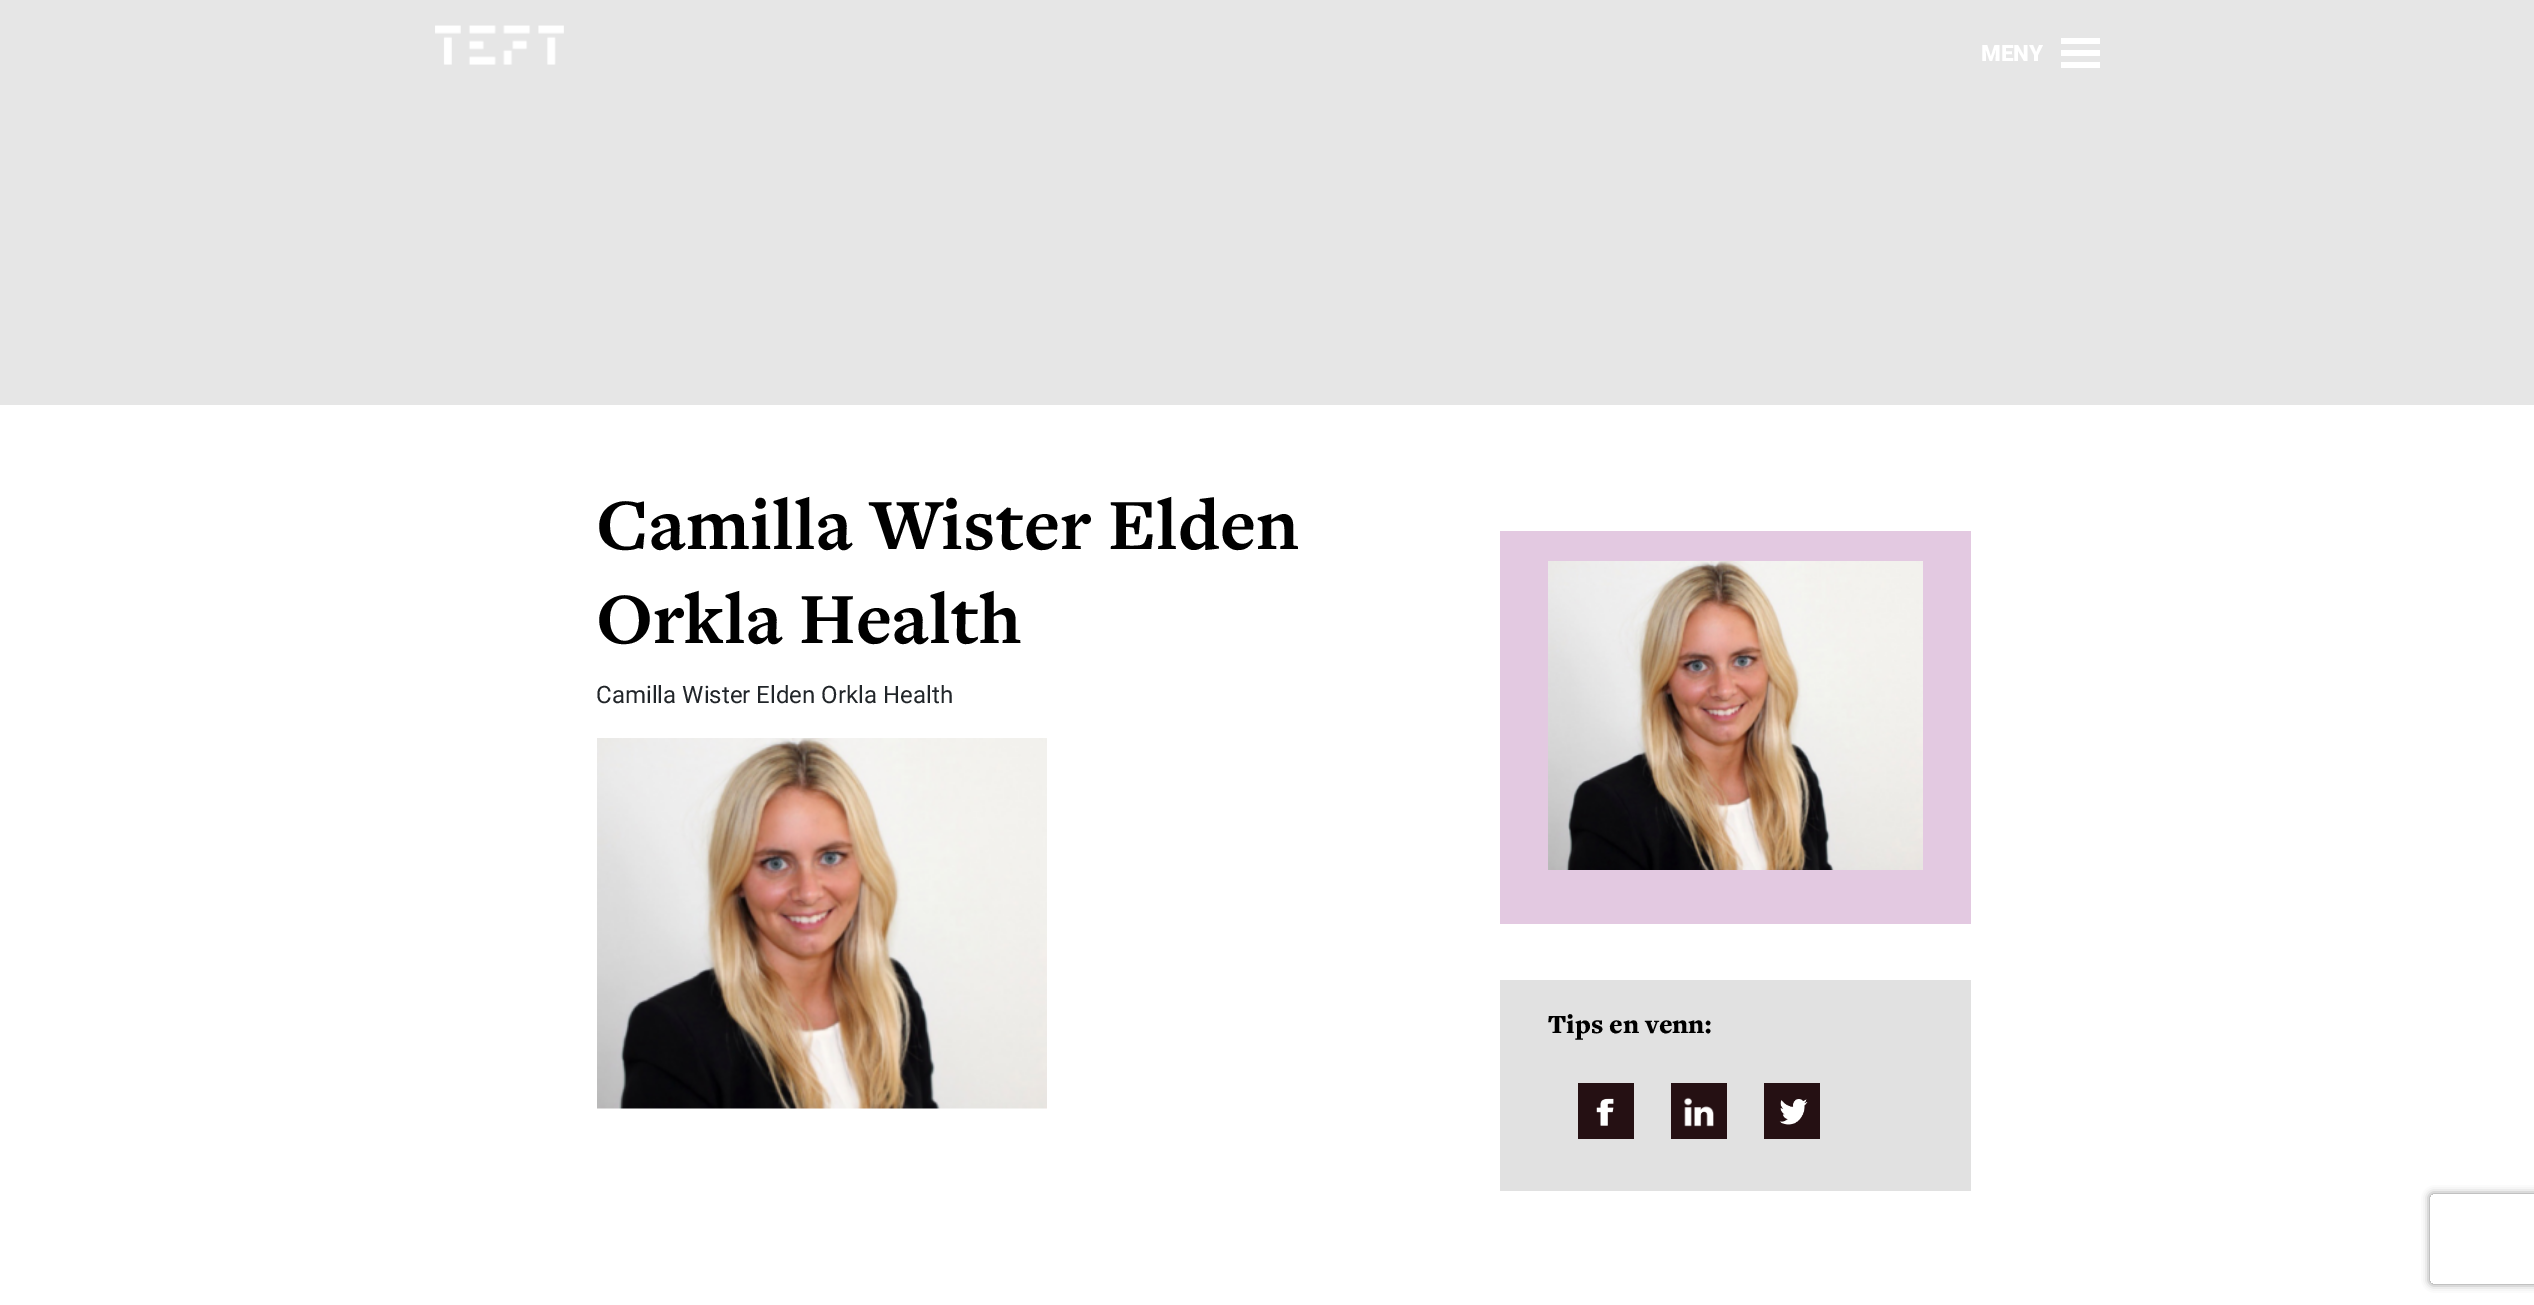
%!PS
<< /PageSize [2534 1305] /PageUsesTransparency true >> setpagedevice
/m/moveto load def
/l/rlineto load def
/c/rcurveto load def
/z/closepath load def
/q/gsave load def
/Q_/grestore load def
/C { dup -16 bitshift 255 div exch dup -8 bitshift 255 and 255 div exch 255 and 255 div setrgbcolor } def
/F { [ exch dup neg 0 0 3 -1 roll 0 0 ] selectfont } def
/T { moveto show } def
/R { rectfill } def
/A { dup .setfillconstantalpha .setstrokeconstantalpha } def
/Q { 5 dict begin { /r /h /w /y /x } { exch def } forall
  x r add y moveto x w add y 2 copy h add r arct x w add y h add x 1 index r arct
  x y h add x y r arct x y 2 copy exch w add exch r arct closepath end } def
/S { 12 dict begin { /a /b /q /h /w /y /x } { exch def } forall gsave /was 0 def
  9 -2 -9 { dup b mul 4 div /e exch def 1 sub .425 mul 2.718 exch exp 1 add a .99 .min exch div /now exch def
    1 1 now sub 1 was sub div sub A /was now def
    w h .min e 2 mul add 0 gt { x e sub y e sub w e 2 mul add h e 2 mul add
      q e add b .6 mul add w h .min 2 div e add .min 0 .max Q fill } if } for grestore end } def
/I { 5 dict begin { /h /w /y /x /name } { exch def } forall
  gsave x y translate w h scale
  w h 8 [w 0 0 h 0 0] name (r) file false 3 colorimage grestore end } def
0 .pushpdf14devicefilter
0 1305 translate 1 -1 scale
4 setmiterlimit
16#FFFFFF C
0 0 2534 1305 R
16#E6E6E6 C
0 0 2534 405 R
(1.rgb) 435 25 129 40 I
/Roboto-Black 22.5 F
16#FFFFFF C
(MENY) 1981 61 T
2061 38 39 6 R
2061 50 39 6 R
2061 62 39 6 R
/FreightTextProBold-Bold 75 F
16#000000 C
(Camilla Wister Elden) 596 549 T
(Orkla Health) 596 643 T
/Roboto-Regular 24 F
16#212529 C
(Camilla Wister Elden Orkla Health) 596 703 T
(2.rgb) 597 738 450 371 I
16#E3C9E1 C
1500 531 471 393 R
(3.rgb) 1548 561 375 309 I
16#E1E1E1 C
1500 980 471 211 R
/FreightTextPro-Black 27 F
16#000000 C
(Tips en venn:) 1548 1033 T
16#251013 C
1578 1083 56 56 R
(4.rgb) 1596 1098 18 28 I
1671 1083 56 56 R
(5.rgb) 1684 1097 30 30 I
1764 1083 56 56 R
(6.rgb) 1779 1099 29 26 I
q
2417 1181 m 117 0 l 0 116 l -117 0 l z 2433 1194 m 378 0 l 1.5 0 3 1.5 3 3 c 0 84 l 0 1.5 -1.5 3 -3 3 c -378 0 l -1.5 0 -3 -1.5 -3 -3 c 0 -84 l 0 -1.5 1.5 -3 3 -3 c z eoclip newpath
16#808080 C
2430 1194 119 90 3 4 1 S
Q_
.poppdf14devicefilter showpage
